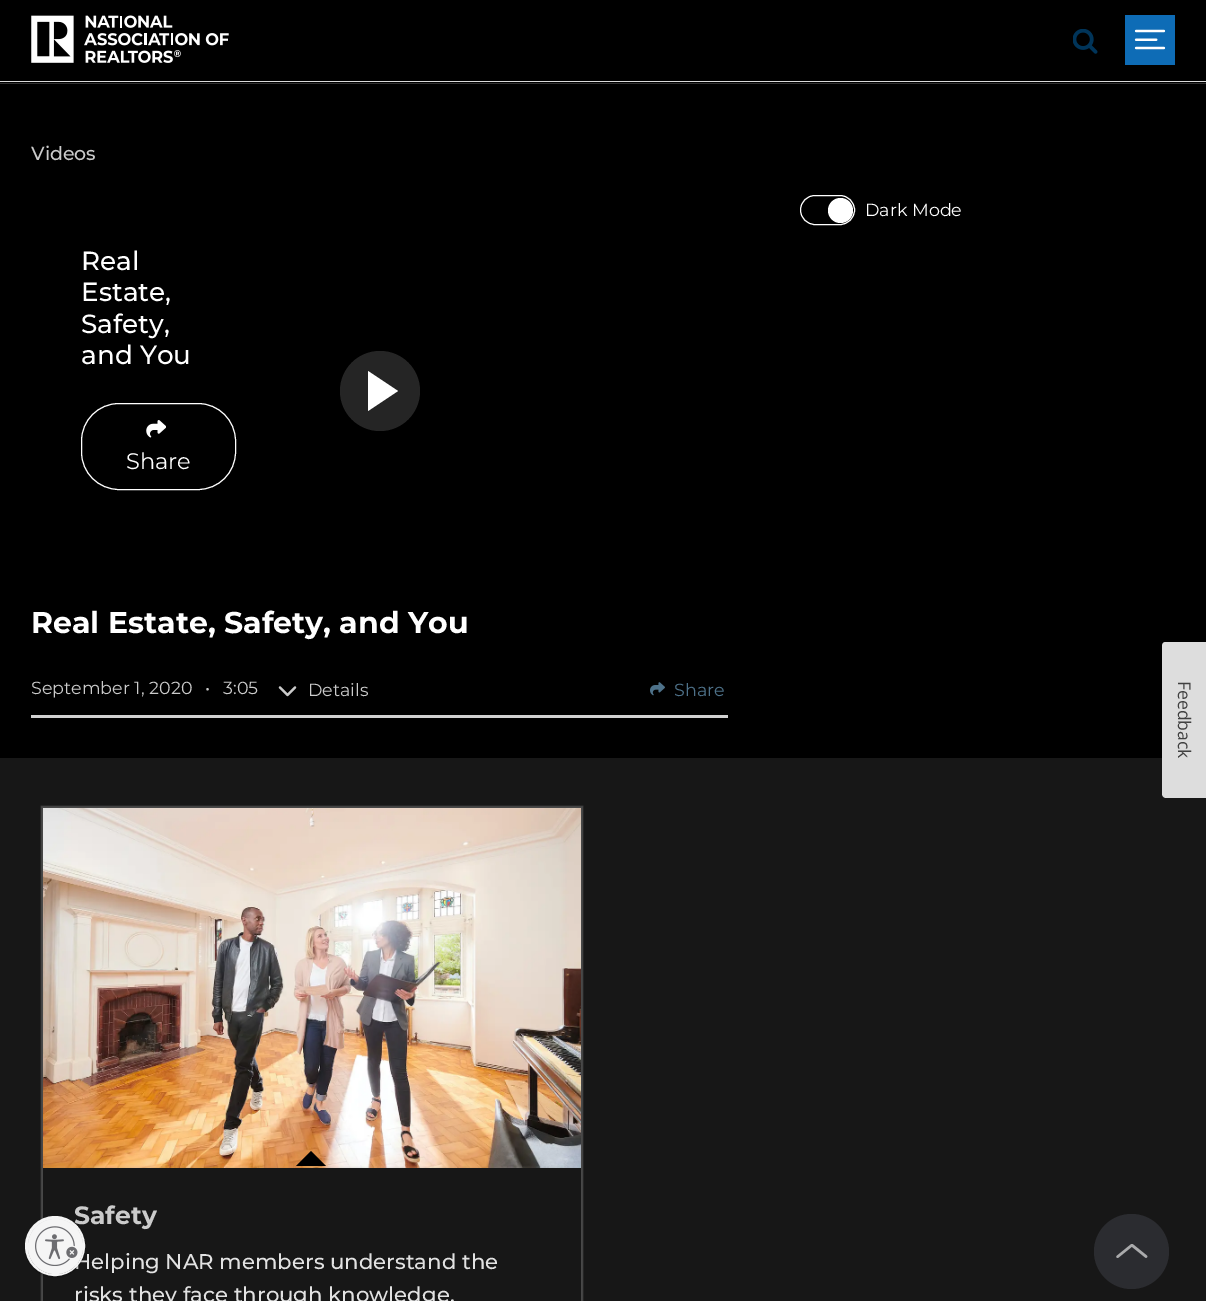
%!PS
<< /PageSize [1206 1301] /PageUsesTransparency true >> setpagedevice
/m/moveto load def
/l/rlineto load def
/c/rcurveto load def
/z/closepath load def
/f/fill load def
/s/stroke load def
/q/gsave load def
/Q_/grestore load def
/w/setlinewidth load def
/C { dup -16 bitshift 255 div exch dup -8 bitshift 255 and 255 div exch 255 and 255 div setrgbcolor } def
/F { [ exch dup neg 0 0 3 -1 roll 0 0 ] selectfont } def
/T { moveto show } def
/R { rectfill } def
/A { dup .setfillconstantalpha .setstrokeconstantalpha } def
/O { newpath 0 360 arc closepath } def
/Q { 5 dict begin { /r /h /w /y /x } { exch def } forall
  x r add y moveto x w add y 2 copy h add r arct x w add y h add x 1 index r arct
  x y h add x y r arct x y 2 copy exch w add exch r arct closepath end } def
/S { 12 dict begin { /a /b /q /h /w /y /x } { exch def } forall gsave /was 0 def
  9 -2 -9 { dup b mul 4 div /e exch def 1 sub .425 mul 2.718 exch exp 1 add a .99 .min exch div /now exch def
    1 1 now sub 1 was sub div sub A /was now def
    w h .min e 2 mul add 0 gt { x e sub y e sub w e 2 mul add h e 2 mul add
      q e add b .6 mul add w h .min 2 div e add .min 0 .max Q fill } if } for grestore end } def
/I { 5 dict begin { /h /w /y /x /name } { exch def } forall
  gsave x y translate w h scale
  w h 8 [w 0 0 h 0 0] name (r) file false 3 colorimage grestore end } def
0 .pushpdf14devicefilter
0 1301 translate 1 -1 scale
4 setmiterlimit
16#000000 C
0 0 1206 1301 R
16#313131 C
0 83 1206 1 R
16#DBDBDB C
0 81 1206 1 R
(1.rgb) 31 15 198 48 I
(2.rgb) 1073 29 25 25 I
(3.rgb) 1125 15 50 50 I
/Montserrat-Medium 19 F
16#CBCBCB C
(Videos) 31 160 T
16#FFFFFF C
800.5 195.5 54 29 14.5 Q s
840.5 210.5 12.5 O f
/Montserrat-Regular 17.5 F
(Dark Mode) 865 216 T
/Montserrat-Medium 26.25 F
(Real) 81 270 T
(Estate,) 81 301 T
(Safety,) 81 333 T
(and You) 81 364 T
81.5 403.5 154 86 37.5 Q s
(4.rgb) 146 420 20 18 I
/Montserrat-Regular 22.5 F
(Share) 126 469 T
16#252525 C
380 391 40 O f
16#FFFFFF C
368 411 m 0 -40 l 30 20 l z f
/Montserrat-Bold 30 F
(Real Estate, Safety, and You) 31 633 T
16#D1D1D1 C
31 715 697 3 R
/Montserrat-Regular 17.5 F
16#CBCBCB C
(September 1, 2020) 31 694 T
(•) 205 694 T
(3:05) 223 694 T
(5.rgb) 278 686 19 11 I
(Details) 308 696 T
(6.rgb) 650 682 15 14 I
16#4E728A C
(Share) 674 696 T
16#171717 C
0 758 1206 543 R
q
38 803 m 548 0 l 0 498 l -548 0 l z 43 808 m 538 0 l 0 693 l -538 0 l z eoclip newpath
16#4A4A4A C
41 806 542 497 0 .5 1 S
Q_
(7.rgb) 43 808 538 360 I
16#000000 C
326 1166 m -30 0 l 15 -15 l z f
/Montserrat-Bold 25 F
16#CBCBCB C
(Safety) 74 1224 T
/Montserrat-Medium 21.25 F
16#E2E2E2 C
(Helping NAR members understand the) 74 1269 T
(risks they face through knowledge,) 74 1302 T
16#2B2C30 C
1131.5 1251.5 37.5 O f
(8.rgb) 1116 1244 32 14 I
16#DDDDDD C
1206 642 m 0 156 l -40 0 l -2 0 -4 -2 -4 -4 c 0 -148 l 0 -3 2 -4 4 -4 c z f
/OpenSans-Regular 17.5 F
16#404040 C
q 1178 681 translate 90 rotate 0 0 m (Feedback) show Q_
16#000000 C
25 1218 60 60 30 1 .24 S
16#EBEBF0 C
55 1246 28.5 O q f Q_
16#F5F5F5 C
3 w
s
q
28 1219 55 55 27.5 Q clip newpath
16#000000 C
28 1220 55 55 27.5 1 .24 S
Q_
55.5 1246.5 27.5 O f
(9.rgb) 35 1226 43 40 I
.poppdf14devicefilter showpage
